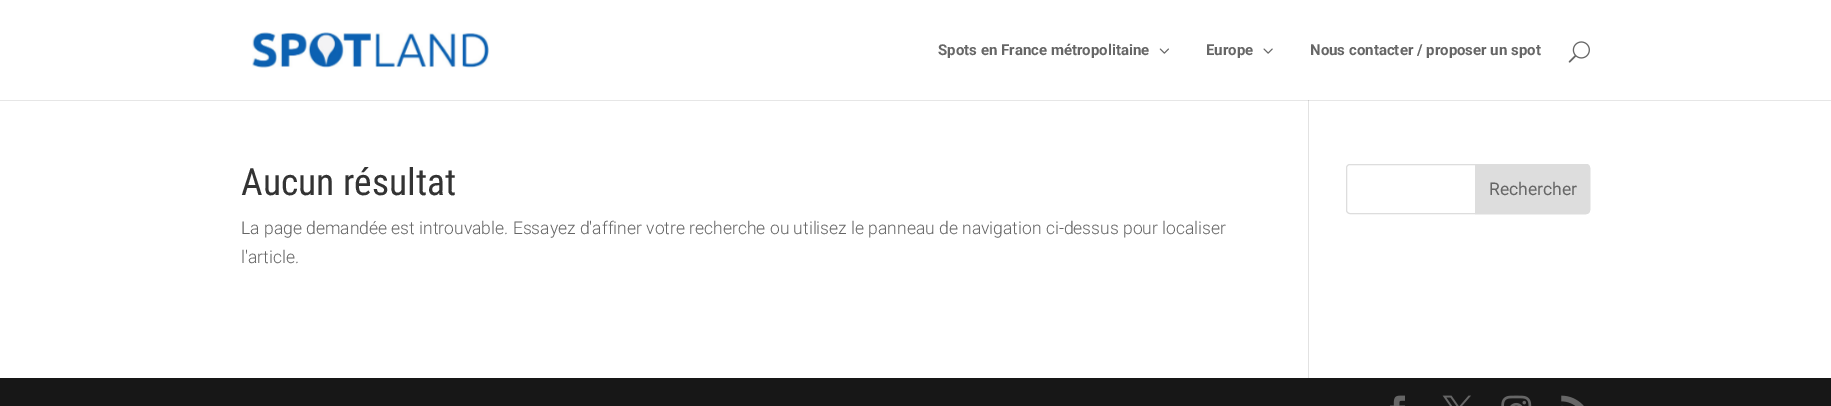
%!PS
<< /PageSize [1831 406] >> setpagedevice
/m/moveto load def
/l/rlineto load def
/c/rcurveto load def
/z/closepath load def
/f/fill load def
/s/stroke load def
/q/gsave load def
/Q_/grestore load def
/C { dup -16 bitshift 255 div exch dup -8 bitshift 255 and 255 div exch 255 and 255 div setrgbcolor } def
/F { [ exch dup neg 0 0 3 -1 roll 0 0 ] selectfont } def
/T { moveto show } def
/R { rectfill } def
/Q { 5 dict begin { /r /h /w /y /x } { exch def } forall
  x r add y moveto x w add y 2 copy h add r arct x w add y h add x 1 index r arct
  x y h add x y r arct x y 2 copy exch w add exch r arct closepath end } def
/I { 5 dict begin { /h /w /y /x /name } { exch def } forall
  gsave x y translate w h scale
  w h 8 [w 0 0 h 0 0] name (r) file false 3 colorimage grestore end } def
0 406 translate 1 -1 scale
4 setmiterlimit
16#FFFFFF C
0 0 1831 406 R
16#E6E6E6 C
0 100 1831 1 R
(1.rgb) 252 32 238 36 I
/Roboto-Bold 15 F
16#666666 C
(Spots en France métropolitaine) 938 55 T
(2.rgb) 1159 48 10 6 I
(Europe) 1206 55 T
(3.rgb) 1263 48 10 6 I
(Nous contacter / proposer un spot) 1310 55 T
(4.rgb) 1568 41 22 22 I
16#E2E2E2 C
1308 101 1 277 R
16#CBCBCB C
1308 100 1 1 R
/RobotoCondensed-Regular 37.5 F
16#333333 C
(Aucun résultat) 241 195 T
/Roboto-Light 17.5 F
16#666666 C
(La page demandée est introuvable. Essayez d'affiner votre recherche ou utilisez le panneau de navigation ci-dessus pour localiser) 241 234 T
(l'article.) 241 263 T
16#DDDDDD C
1346.5 164.5 243 49 3.5 Q s
1475.5 164.5 m 110.5 0 l 2 0 3.5 1.5 3.5 3.5 c 0 42 l 0 2 -1.5 3.5 -3.5 3.5 c -110.5 0 l z q f Q_
s
/Roboto-Regular 17.5 F
16#666666 C
(Rechercher) 1489 195 T
16#171717 C
0 378 1831 28 R
(5.rgb) 1390 395 15 11 I
(6.rgb) 1442 395 29 11 I
(7.rgb) 1501 395 31 11 I
(8.rgb) 1561 395 23 11 I
showpage
